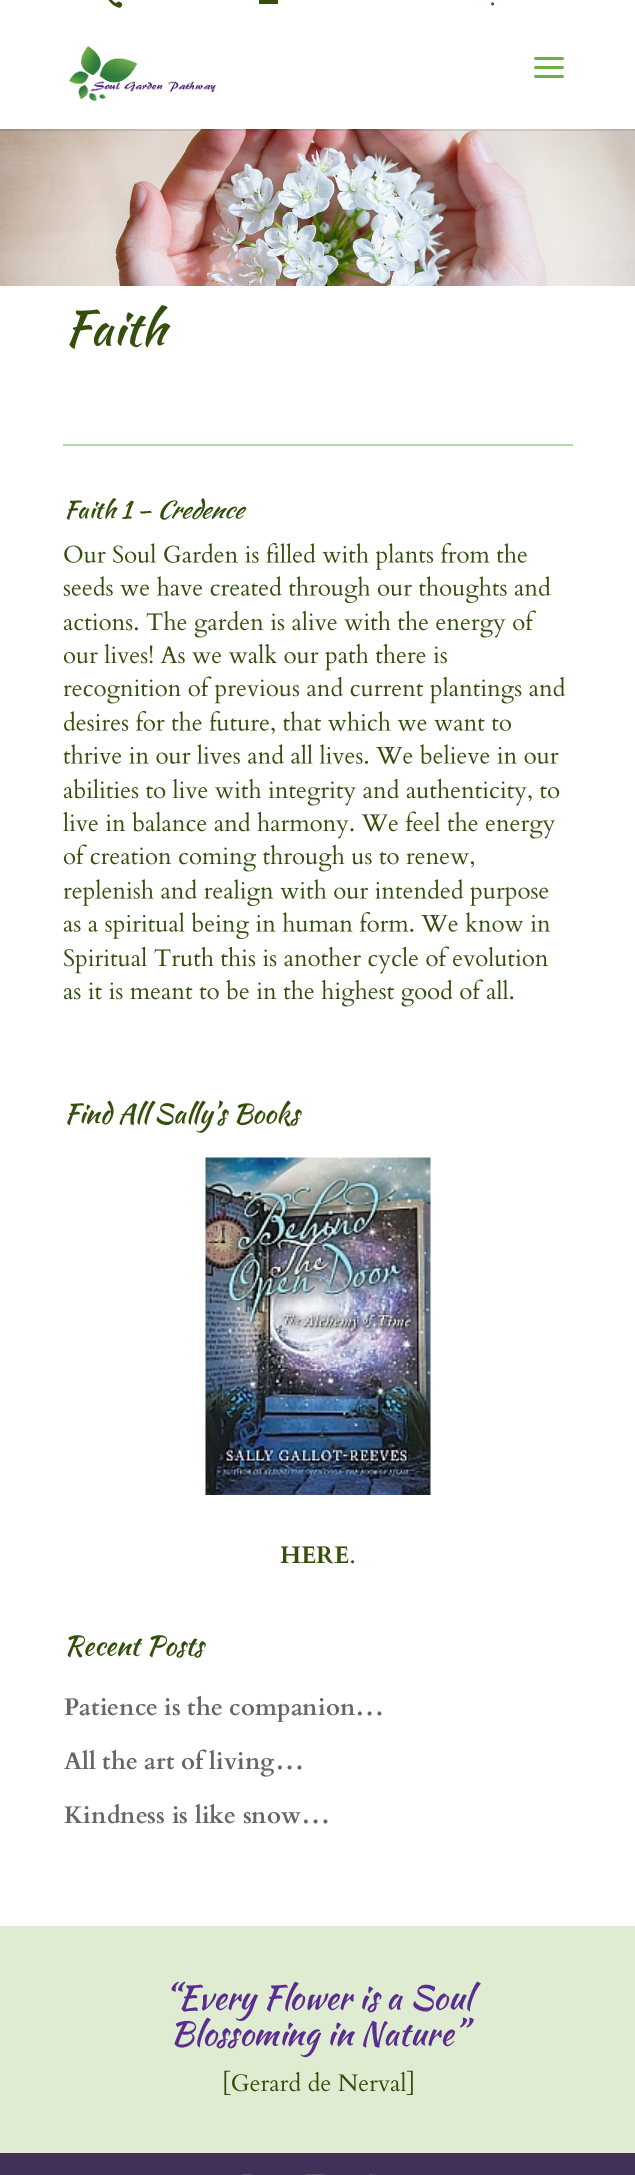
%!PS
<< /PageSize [635 2175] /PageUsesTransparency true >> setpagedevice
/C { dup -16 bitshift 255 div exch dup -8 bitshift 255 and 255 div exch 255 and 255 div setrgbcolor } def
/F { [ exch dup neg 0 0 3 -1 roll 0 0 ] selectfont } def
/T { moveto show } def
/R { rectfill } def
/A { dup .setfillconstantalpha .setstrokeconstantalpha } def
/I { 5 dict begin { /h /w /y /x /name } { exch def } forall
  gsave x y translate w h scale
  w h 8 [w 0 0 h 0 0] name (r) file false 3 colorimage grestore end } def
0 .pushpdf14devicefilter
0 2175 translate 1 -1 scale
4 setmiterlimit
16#413058 C
0 0 635 2175 R
(4.rgb) 0 129 635 157 I
0.1 A
16#000000 C
0 129 635 2 R
1 A
16#FFFFFF C
0 0 635 129 R
(1.rgb) 69 46 147 56 I
(2.rgb) 534 57 30 21 I
(3.rgb) 108 0 15 8 I
/Cardo-Bold 18 F
16#344F0C C
(.) 490 5 T
259 0 19 4 R
16#FFFFFF C
0 286 635 1640 R
/KaushanScript-Regular 48 F
16#344F0C C
(Faith) 64 345 T
16#B7D8A2 C
63 444 510 2 R
/KaushanScript-Regular 24 F
16#344F0C C
(Faith 1 –) 64 518 T
/KaushanScript-Italic 24 F
(Credence) 156 518 T
(5.rgb) 64 542 463 28 I
(6.rgb) 63 576 488 27 I
(7.rgb) 63 610 473 28 I
(8.rgb) 63 643 90 21 I
(9.rgb) 160 643 287 28 I
(10.rgb) 63 676 503 28 I
(11.rgb) 64 710 447 24 I
(12.rgb) 63 744 496 20 I
(13.rgb) 63 778 497 28 I
(14.rgb) 63 811 493 28 I
(15.rgb) 63 844 412 28 I
(16.rgb) 63 879 486 27 I
(17.rgb) 63 911 488 28 I
(18.rgb) 64 946 485 28 I
(19.rgb) 63 979 451 28 I
/KaushanScript-Regular 27 F
(Find All Sally’s Books) 64 1123 T
(20.rgb) 205 1157 226 338 I
/Cardo-Bold 24 F
(HERE) 280 1563 T
(21.rgb) 351 1560 4 4 I
/KaushanScript-Regular 27 F
(Recent Posts) 64 1655 T
/Cardo-Bold 24 F
16#666666 C
(Patience is the companion…) 64 1715 T
(All the art of living…) 64 1769 T
(Kindness is like snow…) 64 1823 T
16#DFECD2 C
0 1926 635 227 R
/KaushanScript-Regular 33 F
16#5B2D91 C
(“Every Flower is a Soul) 164 2009 T
(Blossoming in Nature”) 170 2045 T
(22.rgb) 224 2070 189 25 I
(23.rgb) 242 2174 10 1 I
(24.rgb) 304 2174 22 1 I
(25.rgb) 369 2174 7 1 I
.poppdf14devicefilter showpage
